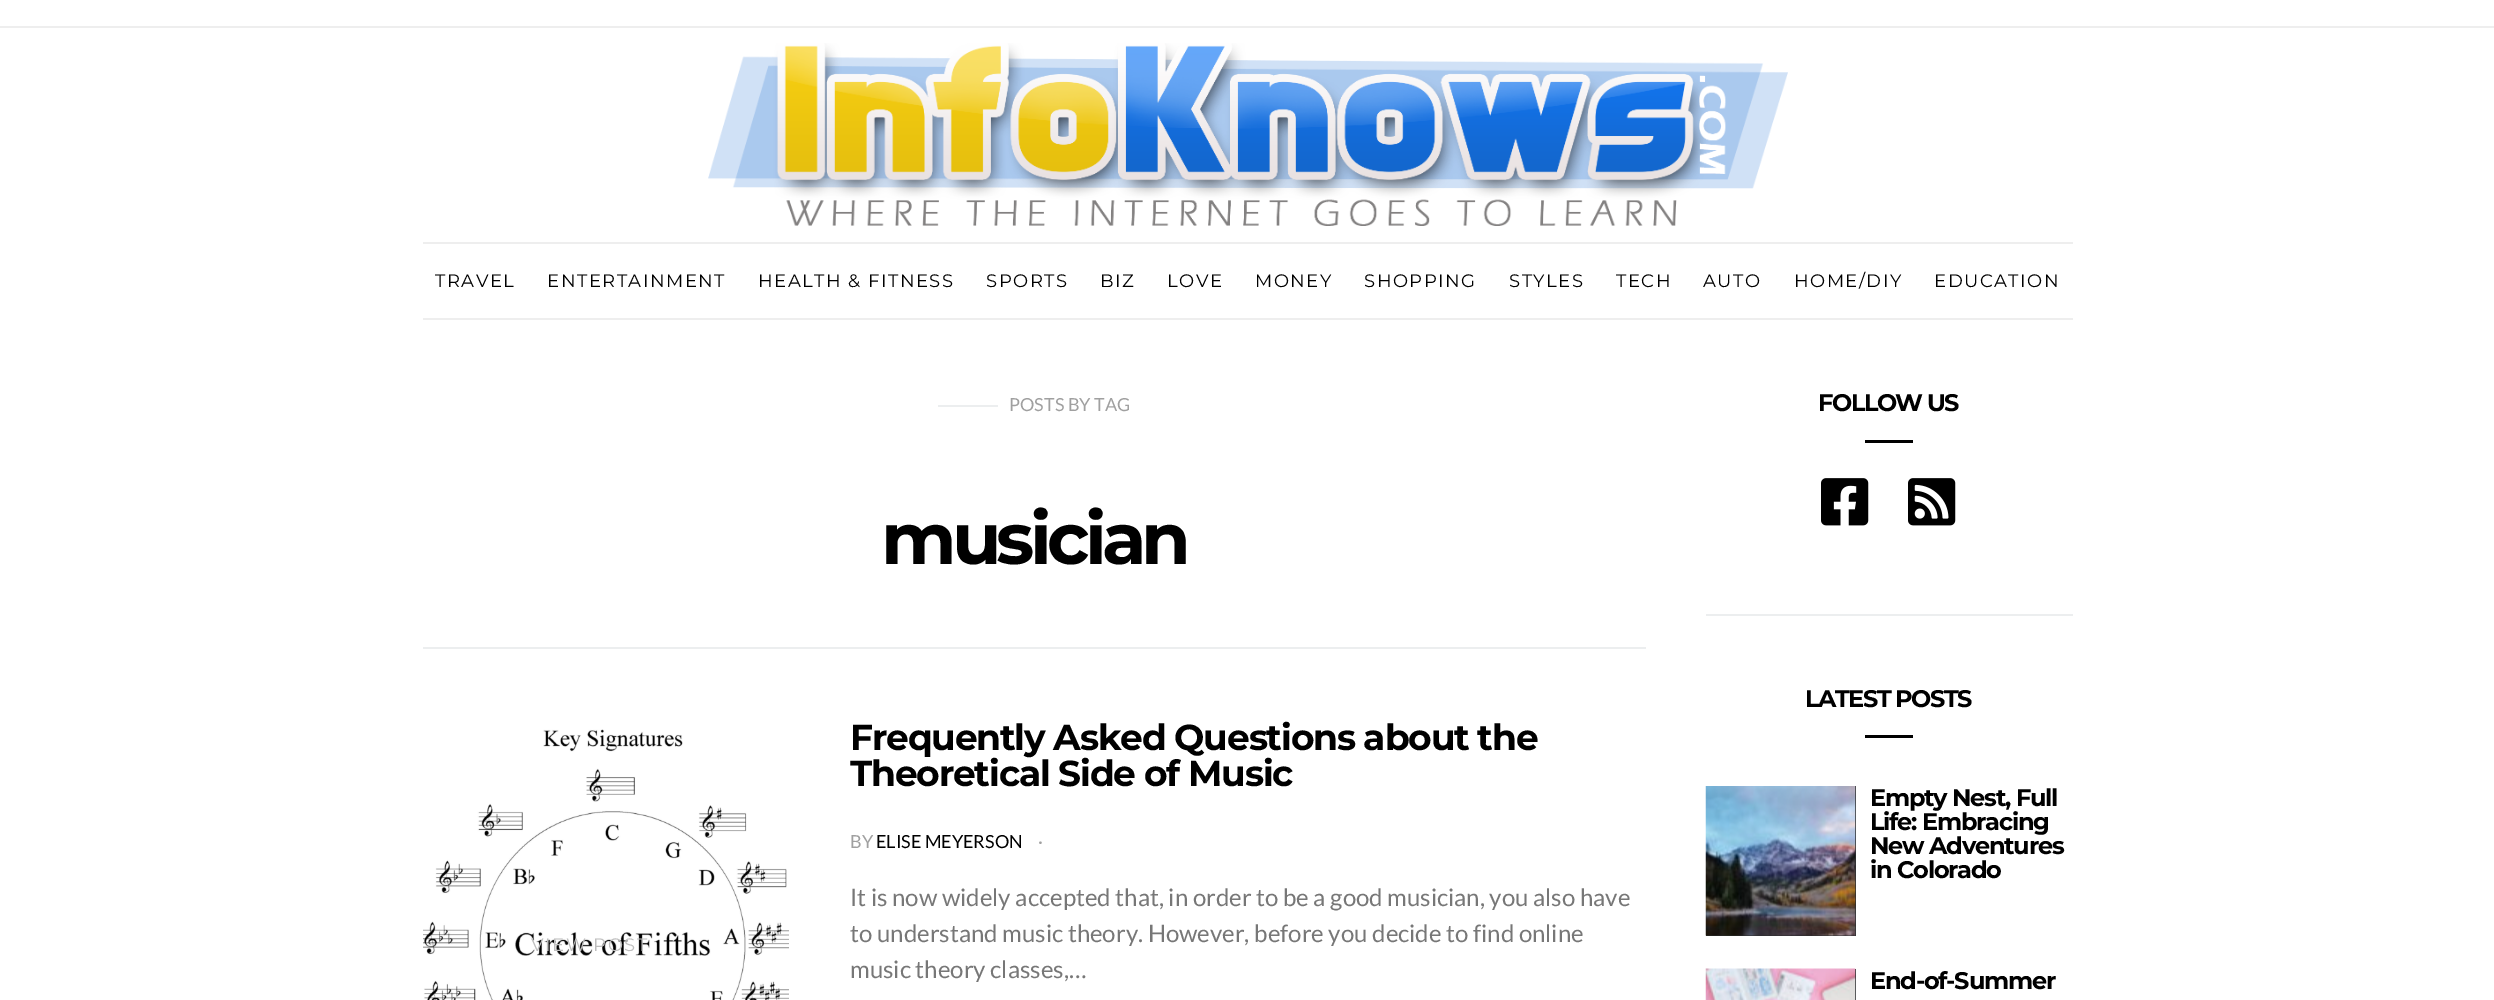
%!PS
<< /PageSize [2494 1000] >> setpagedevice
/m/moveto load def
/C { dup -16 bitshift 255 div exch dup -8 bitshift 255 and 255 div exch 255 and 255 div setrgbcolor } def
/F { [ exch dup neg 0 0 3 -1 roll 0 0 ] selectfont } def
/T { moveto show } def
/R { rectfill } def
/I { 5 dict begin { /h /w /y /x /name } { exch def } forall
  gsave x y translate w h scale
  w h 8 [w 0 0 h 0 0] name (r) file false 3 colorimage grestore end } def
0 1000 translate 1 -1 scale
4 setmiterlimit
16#FFFFFF C
0 0 2494 1000 R
16#EEEEEE C
0 26 2494 2 R
(1.rgb) 708 43 1080 183 I
423 242 1650 2 R
423 318 1650 2 R
/Montserrat-Regular 18 F
16#000000 C
435 287 m 1.5 0 (TRAVEL) ashow
547 287 m 1.5 0 (ENTERTAINMENT) ashow
758 287 m 1.5 0 (HEALTH & FITNESS) ashow
986 287 m 1.5 0 (SPORTS) ashow
1100 287 m 1.5 0 (BIZ) ashow
1167 287 m 1.5 0 (LOVE) ashow
1255 287 m 1.5 0 (MONEY) ashow
1364 287 m 1.5 0 (SHOPPING) ashow
1509 287 m 1.5 0 (STYLES) ashow
1616 287 m 1.5 0 (TECH) ashow
1703 287 m 1.5 0 (AUTO) ashow
1794 287 m 1.5 0 (HOME/DIY) ashow
1934 287 m 1.5 0 (EDUCATION) ashow
16#ECEEEF C
423 647 1223 2 R
938 405 60 2 R
/Lato-Regular 18 F
16#A0A0A0 C
(POSTS BY TAG) 1009 411 T
/Montserrat-Bold 72 F
16#000000 C
881 564 m -4.75 0 (musician) ashow
(2.rgb) 423 729 366 271 I
/Montserrat-Regular 18 F
16#BEBEBE C
531 951 m 1.5 0 (VIEW POST) ashow
/Montserrat-Bold 36 F
16#000000 C
850 750 m -1.2 0 (Frequently Asked Questions about the) ashow
850 786 m -1.2 0 (Theoretical Side of Music) ashow
/Lato-Regular 18 F
16#A0A0A0 C
(BY) 850 848 T
16#000000 C
(ELISE MEYERSON) 876 848 T
16#A0A0A0 C
(·) 1038 848 T
/Lato-Regular 24 F
16#777777 C
(It is now widely accepted that, in order to be a good musician, you also have) 850 906 T
(to understand music theory. However, before you decide to find online) 850 942 T
(music theory classes,…) 850 978 T
/Montserrat-Bold 24 F
16#000000 C
1818 411 m -1.5 0 (FOLLOW US) ashow
1865 440 48 3 R
(3.rgb) 1821 478 48 48 I
(4.rgb) 1908 478 48 48 I
16#ECEEEF C
1706 614 367 2 R
16#000000 C
1805 707 m -1.5 0 (LATEST POSTS) ashow
1865 735 48 3 R
16#2C2F30 C
1706 786 150 150 R
(5.rgb) 1705 786 151 150 I
16#000000 C
1870 806 m -1.2 0 (Empty Nest, Full) ashow
1870 830 m -1.2 0 (Life: Embracing) ashow
1870 854 m -1.2 0 (New Adventures) ashow
1870 878 m -1.2 0 (in Colorado) ashow
16#2C2F30 C
1855 969 1 31 R
(6.rgb) 1705 968 151 32 I
16#000000 C
1870 989 m -1.2 0 (End-of-Summer) ashow
showpage
